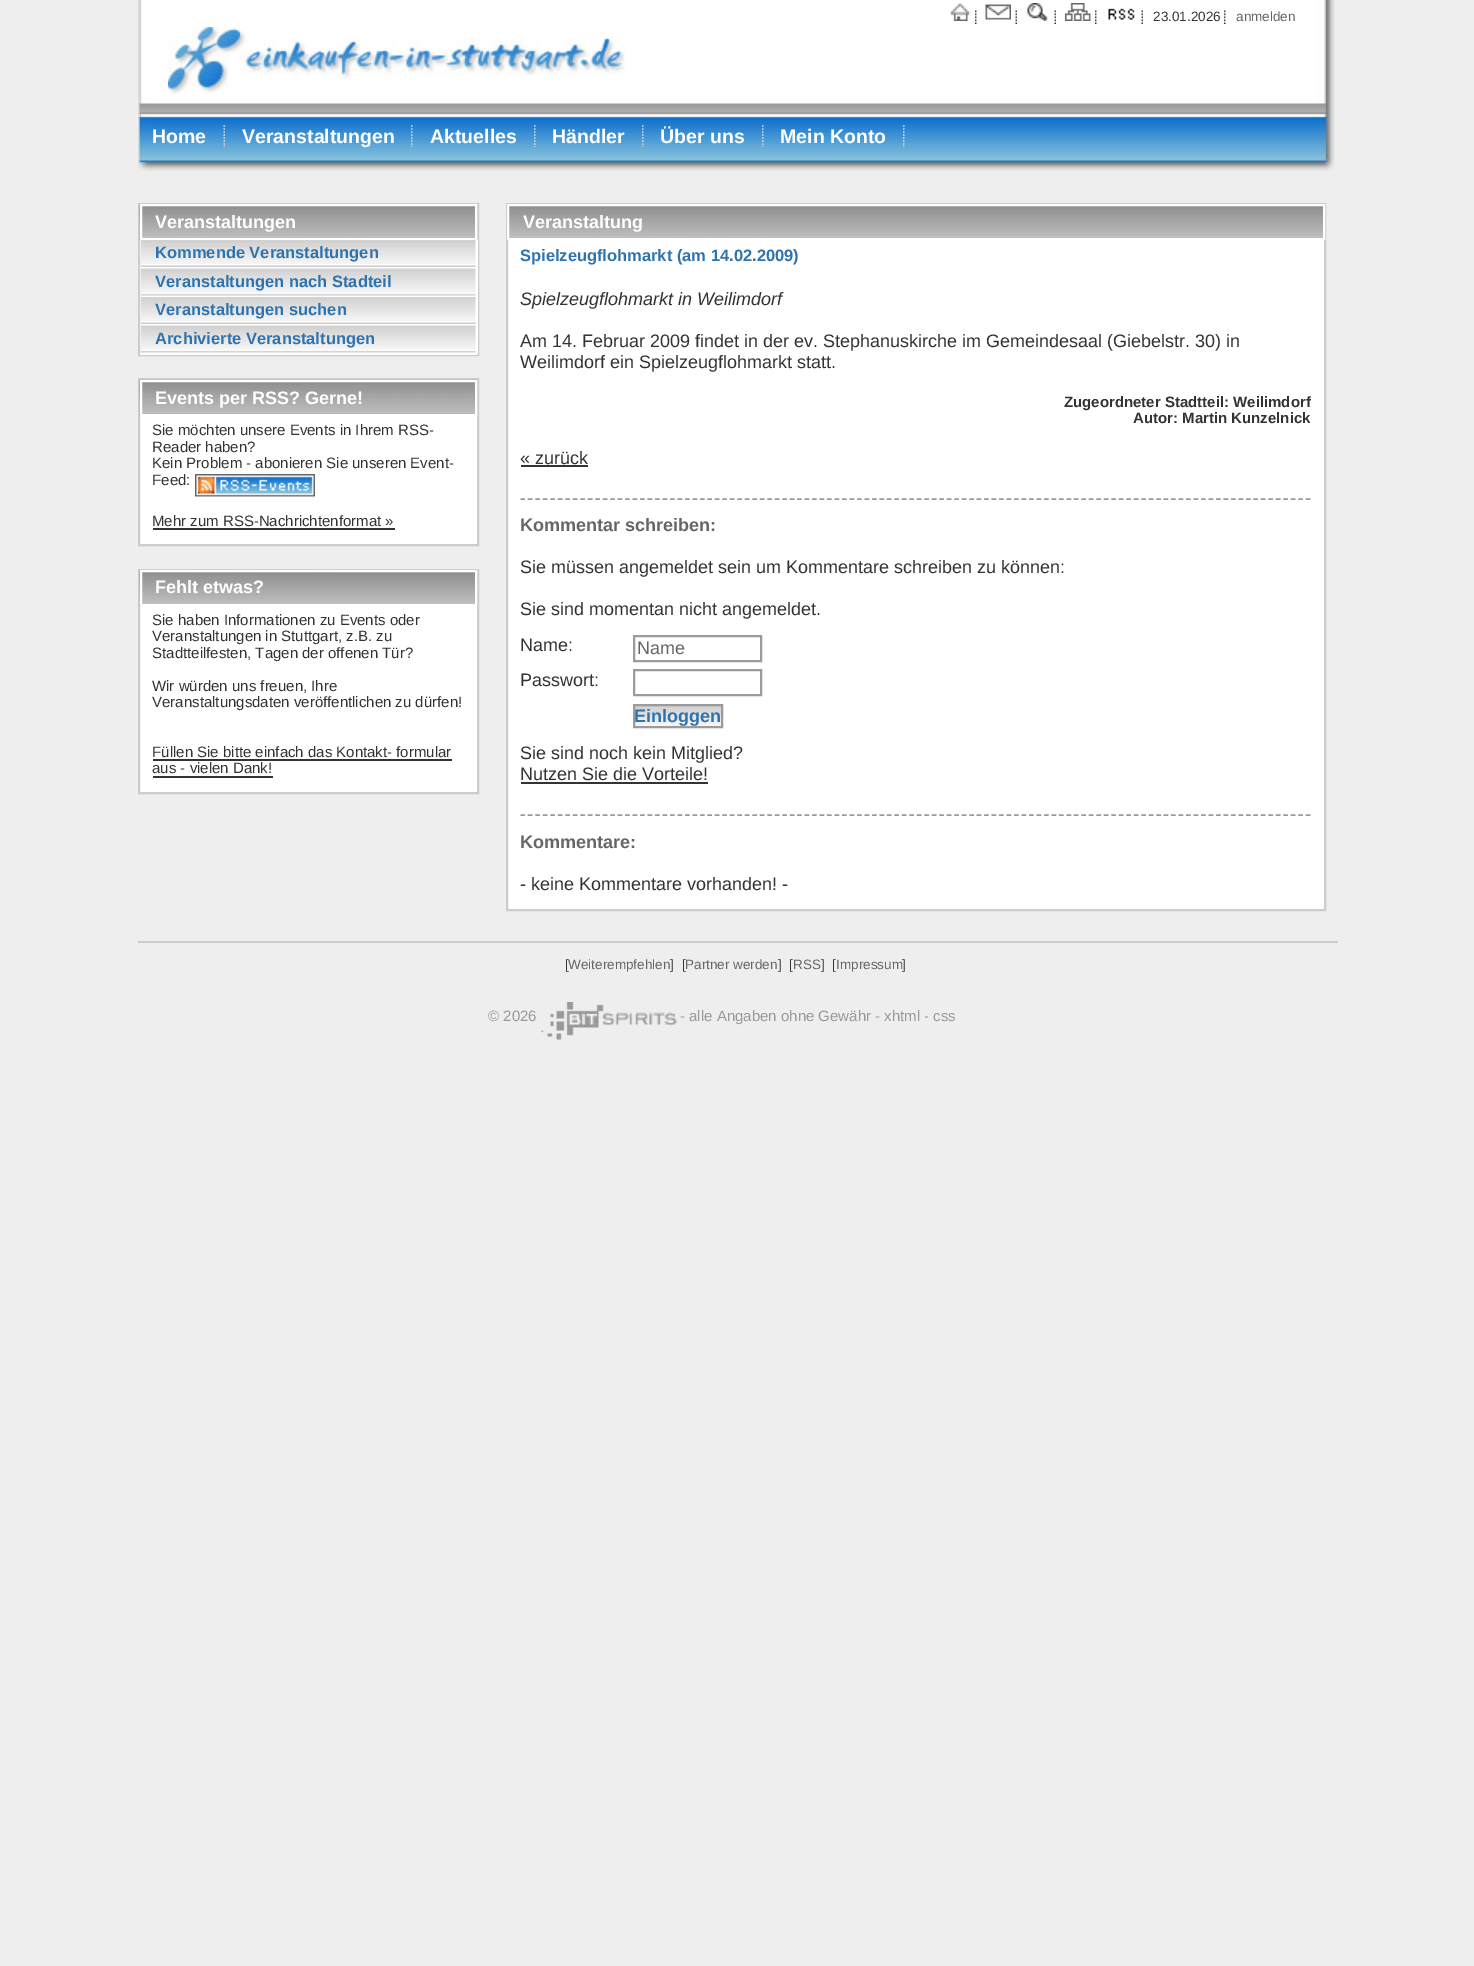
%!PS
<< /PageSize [1474 1966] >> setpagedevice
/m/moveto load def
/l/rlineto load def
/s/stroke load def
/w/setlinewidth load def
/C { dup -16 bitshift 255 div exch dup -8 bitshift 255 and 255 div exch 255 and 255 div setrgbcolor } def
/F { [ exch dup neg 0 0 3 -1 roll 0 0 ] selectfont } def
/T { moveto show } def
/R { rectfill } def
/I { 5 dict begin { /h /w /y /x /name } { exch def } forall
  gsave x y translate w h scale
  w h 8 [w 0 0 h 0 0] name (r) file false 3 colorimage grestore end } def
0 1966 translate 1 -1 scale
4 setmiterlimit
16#EEEEEE C
0 0 1474 1966 R
(1.rgb) 138 0 1197 171 I
(2.rgb) 949 3 22 18 I
(3.rgb) 975 10 2 14 I
(4.rgb) 985 4 26 16 I
(5.rgb) 1015 10 2 14 I
(6.rgb) 1027 3 21 18 I
(5.rgb) 1054 10 2 14 I
(7.rgb) 1065 3 26 18 I
(3.rgb) 1095 10 2 14 I
(8.rgb) 1108 8 27 12 I
(5.rgb) 1141 10 2 14 I
/LiberationSans-Regular 13.5 F
16#333333 C
(23.01.2026) 1153 21 T
(3.rgb) 1224 10 2 14 I
16#666666 C
(anmelden) 1236 21 T
(9.rgb) 168 27 457 68 I
/LiberationSans-Bold 19.5 F
16#FFFFFF C
(Home) 152 143 T
(10.rgb) 223 125 2 22 I
(Veranstaltungen) 242 143 T
(11.rgb) 411 125 2 22 I
(Aktuelles) 430 143 T
(11.rgb) 534 125 2 22 I
(Händler) 552 143 T
(11.rgb) 642 125 2 22 I
(Über uns) 660 143 T
(11.rgb) 762 125 2 22 I
(Mein Konto) 780 143 T
(11.rgb) 903 125 2 22 I
140 240 336 113 R
16#CCCCCC C
2 w
139 204 339 151 rectstroke
(12.rgb) 139 204 336 36 I
16#FFFFFF C
141 205 335 34 rectstroke
/LiberationSans-Bold 18 F
(Veranstaltungen) 155 228 T
476 240 2 114 R
(13.rgb) 141 240 335 27 I
/LiberationSans-Bold 16.5 F
16#2E73AE C
(Kommende Veranstaltungen) 155 258 T
(14.rgb) 141 268 335 28 I
(Veranstaltungen nach Stadteil) 155 287 T
(13.rgb) 141 297 335 27 I
(Veranstaltungen suchen) 155 315 T
16#FFFFFF C
140 353 337 2 R
(14.rgb) 141 325 335 28 I
16#2E73AE C
(Archivierte Veranstaltungen) 155 344 T
16#FFFFFF C
140 416 337 128 R
16#CCCCCC C
139 379 339 166 rectstroke
(15.rgb) 139 379 338 37 I
16#FFFFFF C
141 381 335 34 rectstroke
/LiberationSans-Bold 18 F
(Events per RSS? Gerne!) 155 404 T
/LiberationSans-Regular 15 F
16#333333 C
(Sie möchten unsere Events in Ihrem RSS-) 152 435 T
(Reader haben?) 152 452 T
(Kein Problem - abonieren Sie unseren Event-) 152 468 T
(Feed:) 152 485 T
(16.rgb) 195 474 120 23 I
(Mehr zum RSS-Nachrichtenformat ») 152 526 T
153 528 242 2 R
16#FFFFFF C
140 606 337 186 R
16#CCCCCC C
139 570 339 223 rectstroke
(17.rgb) 139 570 336 36 I
16#FFFFFF C
141 571 335 34 rectstroke
/LiberationSans-Bold 18 F
(Fehlt etwas?) 155 593 T
/LiberationSans-Regular 15 F
16#333333 C
(Sie haben Informationen zu Events oder) 152 625 T
(Veranstaltungen in Stuttgart, z.B. zu) 152 641 T
(Stadtteilfesten, Tagen der offenen Tür?) 152 658 T
(Wir würden uns freuen, Ihre) 152 691 T
(Veranstaltungsdaten veröffentlichen zu dürfen!) 152 707 T
(Füllen Sie bitte einfach das Kontakt- formular) 152 757 T
153 759 299 2 R
(aus - vielen Dank!) 152 773 T
153 776 120 2 R
16#FFFFFF C
508 240 816 669 R
16#CCCCCC C
507 204 818 706 rectstroke
(18.rgb) 509 206 814 32 I
16#FFFFFF C
508 205 816 34 rectstroke
/LiberationSans-Bold 18 F
(Veranstaltung) 523 228 T
/LiberationSans-Bold 16.5 F
16#2E73AE C
(Spielzeugflohmarkt \(am 14.02.2009\)) 520 261 T
/LiberationSans-Italic 18 F
16#333333 C
(Spielzeugflohmarkt in Weilimdorf) 520 305 T
/LiberationSans-Regular 18 F
(Am 14. Februar 2009 findet in der ev. Stephanuskirche im Gemeindesaal \(Giebelstr. 30\) in) 520 347 T
(Weilimdorf ein Spielzeugflohmarkt statt.) 520 368 T
/LiberationSans-Bold 15 F
(Zugeordneter Stadtteil: Weilimdorf) 1064 407 T
(Autor: Martin Kunzelnick) 1133 423 T
/LiberationSans-Regular 18 F
(« zurück) 520 464 T
521 465 67 2 R
16#999999 C
1.5 w
[4.5 2.98] 0 setdash
520.5 499 m 790.5 0 l s
/LiberationSans-Bold 18 F
16#666666 C
(Kommentar schreiben:) 520 531 T
/LiberationSans-Regular 18 F
16#333333 C
(Sie müssen angemeldet sein um Kommentare schreiben zu können:) 520 573 T
(Sie sind momentan nicht angemeldet.) 520 615 T
(Name:) 520 651 T
16#9B9B9B C
2 w
[] 0 setdash
634 636 127 25 rectstroke
16#666666 C
(Name) 637 654 T
16#333333 C
(Passwort:) 520 686 T
16#9B9B9B C
634 670 127 25 rectstroke
(19.rgb) 635 706 86 20 I
634 705 88 22 rectstroke
/LiberationSans-Bold 18 F
16#2E73AE C
(Einloggen) 634 722 T
/LiberationSans-Regular 18 F
16#333333 C
(Sie sind noch kein Mitglied?) 520 759 T
(Nutzen Sie die Vorteile!) 520 780 T
521 782 187 2 R
16#999999 C
1.5 w
[4.5 2.98] 0 setdash
520.5 815 m 790.5 0 l s
/LiberationSans-Bold 18 F
16#666666 C
(Kommentare:) 520 848 T
/LiberationSans-Regular 18 F
16#333333 C
(- keine Kommentare vorhanden! -) 520 890 T
16#CCCCCC C
138 941 1200 2 R
/LiberationSans-Regular 13.5 F
16#333333 C
([) 565 969 T
16#666666 C
(Weiterempfehlen) 568 969 T
16#333333 C
(]) 670 969 T
([) 682 969 T
16#666666 C
(Partner werden) 685 969 T
16#333333 C
(]) 778 969 T
([) 789 969 T
16#666666 C
(RSS) 793 969 T
16#333333 C
(]) 821 969 T
([) 832 969 T
16#666666 C
(Impressum) 836 969 T
16#333333 C
(]) 902 969 T
/LiberationSans-Regular 15 F
16#999999 C
(© 2026) 488 1021 T
(20.rgb) 541 1002 136 38 I
(- alle Angaben ohne Gewähr - xhtml - css) 680 1021 T
showpage
